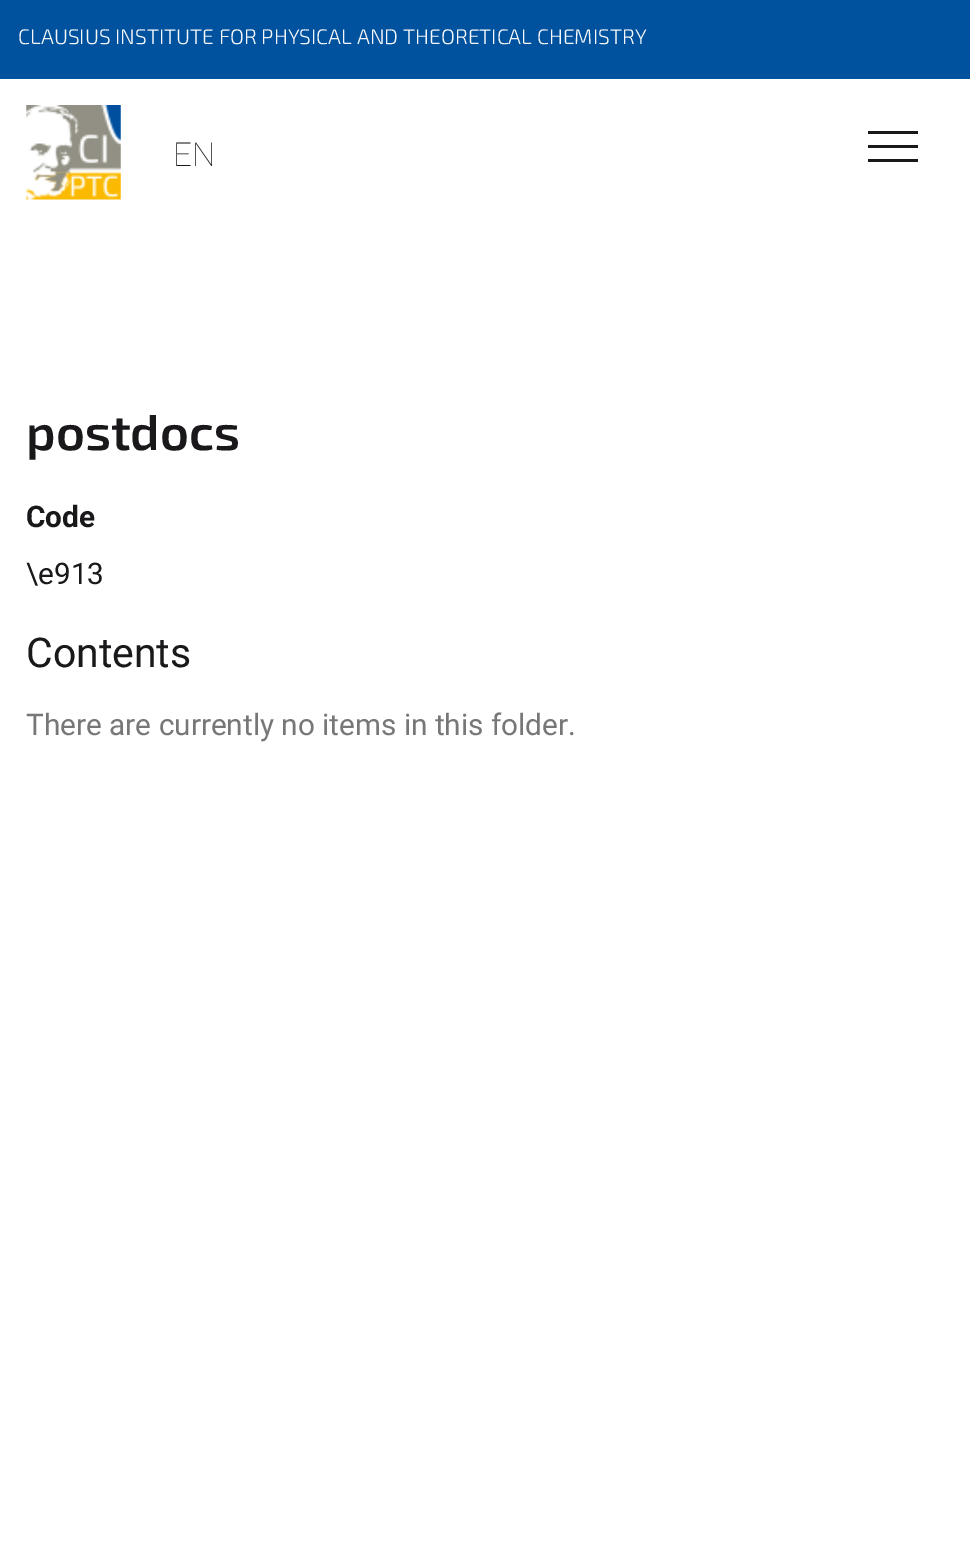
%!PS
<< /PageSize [970 1560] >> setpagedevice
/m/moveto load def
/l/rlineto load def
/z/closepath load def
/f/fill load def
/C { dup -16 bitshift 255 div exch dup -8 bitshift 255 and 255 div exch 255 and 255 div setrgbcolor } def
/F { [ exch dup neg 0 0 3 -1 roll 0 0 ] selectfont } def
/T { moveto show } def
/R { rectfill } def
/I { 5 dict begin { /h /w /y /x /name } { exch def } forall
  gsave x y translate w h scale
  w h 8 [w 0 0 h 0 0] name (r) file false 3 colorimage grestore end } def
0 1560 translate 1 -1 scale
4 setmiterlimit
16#FFFFFF C
0 0 970 1560 R
16#00529F C
0 0 970 79 R
/Exo2-Light 21 F
16#F6F7F9 C
(CLAUSIUS INSTITUTE FOR PHYSICAL AND THEORETICAL CHEMISTRY) 18 44 T
(1.rgb) 26 105 95 95 I
/Roboto-Thin 33 F
16#1A181B C
(EN) 173 166 T
868 162 m 50 0 l 0 -3 l -50 0 l z 868 148 m 50 0 l 0 -3 l -50 0 l z 868 131 m 0 3 l 50 0 l 0 -3 l z f
/Exo2-SemiBold 50 F
(postdocs) 26 450 T
/Roboto-Bold 29.75 F
(Code) 26 527 T
/Roboto-Regular 29.75 F
(\\e913) 26 584 T
/Roboto-Regular 41 F
(Contents) 26 667 T
/Roboto-Regular 29.75 F
16#777777 C
(There are currently no items in this folder.) 26 735 T
showpage
